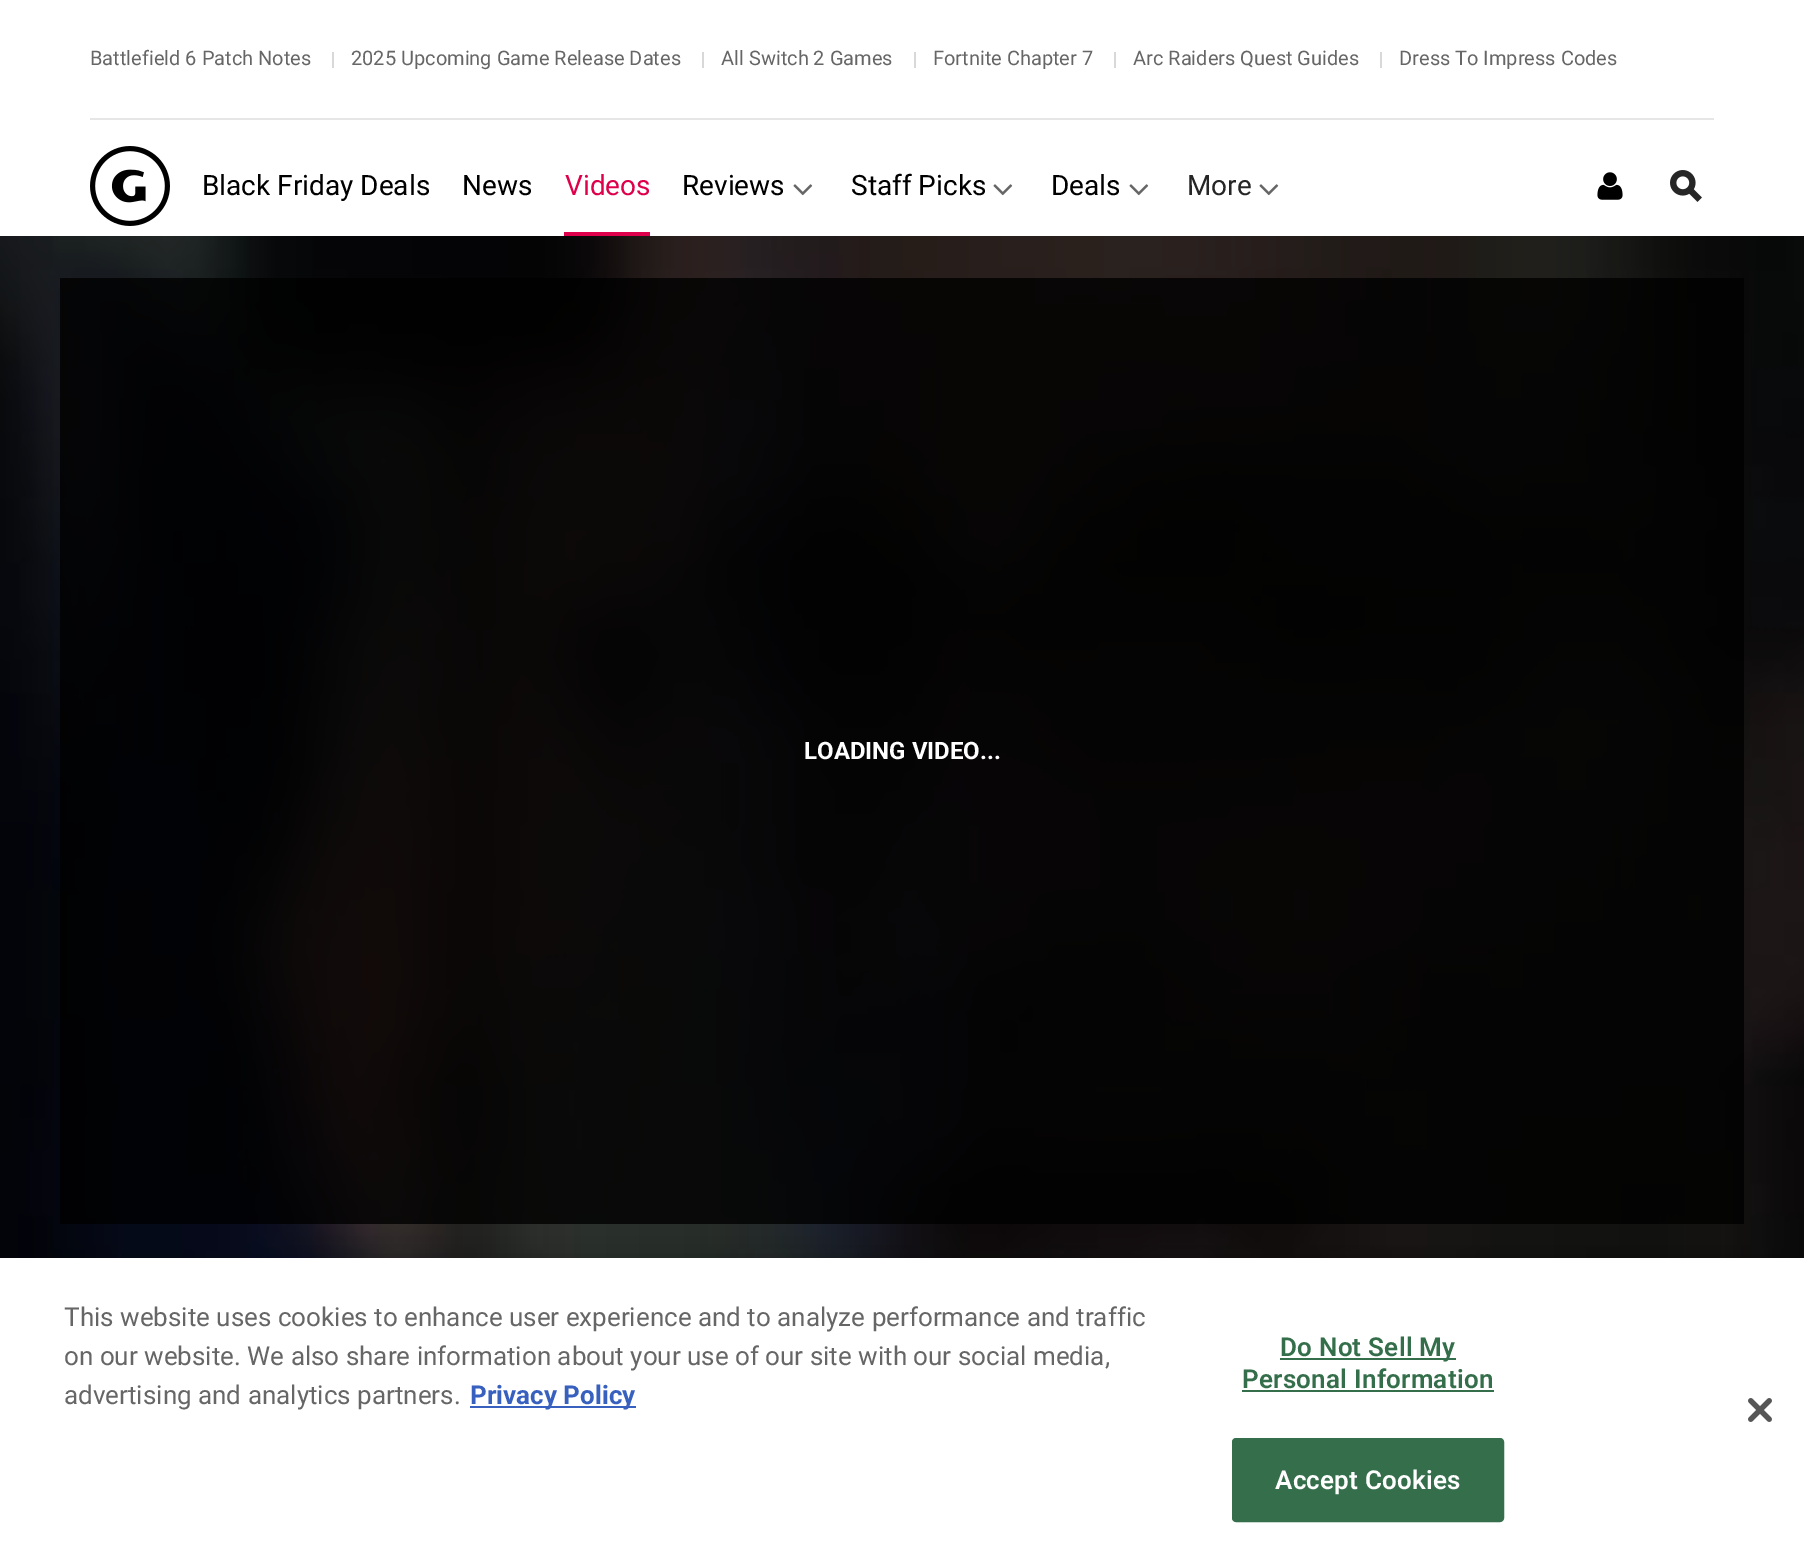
%!PS
<< /PageSize [1804 1562] /PageUsesTransparency true >> setpagedevice
/m/moveto load def
/f/fill load def
/s/stroke load def
/q/gsave load def
/Q_/grestore load def
/w/setlinewidth load def
/C { dup -16 bitshift 255 div exch dup -8 bitshift 255 and 255 div exch 255 and 255 div setrgbcolor } def
/F { [ exch dup neg 0 0 3 -1 roll 0 0 ] selectfont } def
/T { moveto show } def
/R { rectfill } def
/A { dup .setfillconstantalpha .setstrokeconstantalpha } def
/Q { 5 dict begin { /r /h /w /y /x } { exch def } forall
  x r add y moveto x w add y 2 copy h add r arct x w add y h add x 1 index r arct
  x y h add x y r arct x y 2 copy exch w add exch r arct closepath end } def
/S { 12 dict begin { /a /b /q /h /w /y /x } { exch def } forall gsave /was 0 def
  9 -2 -9 { dup b mul 4 div /e exch def 1 sub .425 mul 2.718 exch exp 1 add a .99 .min exch div /now exch def
    1 1 now sub 1 was sub div sub A /was now def
    w h .min e 2 mul add 0 gt { x e sub y e sub w e 2 mul add h e 2 mul add
      q e add b .6 mul add w h .min 2 div e add .min 0 .max Q fill } if } for grestore end } def
/I { 5 dict begin { /h /w /y /x /name } { exch def } forall
  gsave x y translate w h scale
  w h 8 [w 0 0 h 0 0] name (r) file false 3 colorimage grestore end } def
0 .pushpdf14devicefilter
0 1562 translate 1 -1 scale
4 setmiterlimit
16#FFFFFF C
0 0 1804 1562 R
16#E6E6E6 C
90 118 1624 2 R
/Roboto-Regular 20 F
16#666666 C
(Battlefield 6 Patch Notes) 90 65 T
16#D8D8D8 C
332 52 2 16 R
16#666666 C
(2025 Upcoming Game Release Dates) 351 65 T
16#D8D8D8 C
702 52 2 16 R
16#666666 C
(All Switch 2 Games) 721 65 T
16#D8D8D8 C
914 52 2 16 R
16#666666 C
(Fortnite Chapter 7) 933 65 T
16#D8D8D8 C
1114 52 2 16 R
16#666666 C
(Arc Raiders Quest Guides) 1133 65 T
16#D8D8D8 C
1380 52 2 16 R
16#666666 C
(Dress To Impress Codes) 1399 65 T
(1.rgb) 90 146 80 80 I
/Roboto-Regular 28 F
16#000000 C
(Black Friday Deals) 202 195 T
(News) 462 195 T
16#DE004A C
(Videos) 565 195 T
564 232 86 4 R
16#000000 C
(Reviews) 682 195 T
(2.rgb) 793 184 20 12 I
(Staff Picks) 851 195 T
(2.rgb) 993 184 20 12 I
(Deals) 1051 195 T
(2.rgb) 1129 184 20 12 I
16#262626 C
(More) 1187 195 T
(2.rgb) 1259 184 20 12 I
(3.rgb) 1597 172 26 28 I
(4.rgb) 1670 170 32 32 I
(5.rgb) 0 236 1804 1022 I
0.8 A
16#000000 C
60 278 1684 946 R
/Roboto-Bold 24 F
1 A
16#FFFFFF C
(LOADING VIDEO...) 804 759 T
16#000000 C
0 1258 1804 304 0 18 .2 S
16#FFFFFF C
0 1258 1804 304 R
/Roboto-Regular 26 F
16#666666 C
(This website uses cookies to enhance user experience and to analyze performance and traffic) 64 1326 T
(on our website. We also share information about your use of our site with our social media,) 64 1365 T
(advertising and analytics partners.) 64 1404 T
16#3860BE C
470 1406 166 2 R
/Roboto-Bold 26 F
(Privacy Policy) 470 1404 T
16#346E4A C
1280 1358 176 2 R
/Roboto-SemiBold 26 F
1280 1356 m .25 0 (Do Not Sell My) ashow
1242 1388 m .25 0 (Personal Information) ashow
1242 1390 252 2 R
1233 1439 270 82 3 Q q f Q_
2 w
s
16#FFFFFF C
1275 1489 m .25 0 (Accept Cookies) ashow
(6.rgb) 1748 1398 24 24 I
.poppdf14devicefilter showpage
